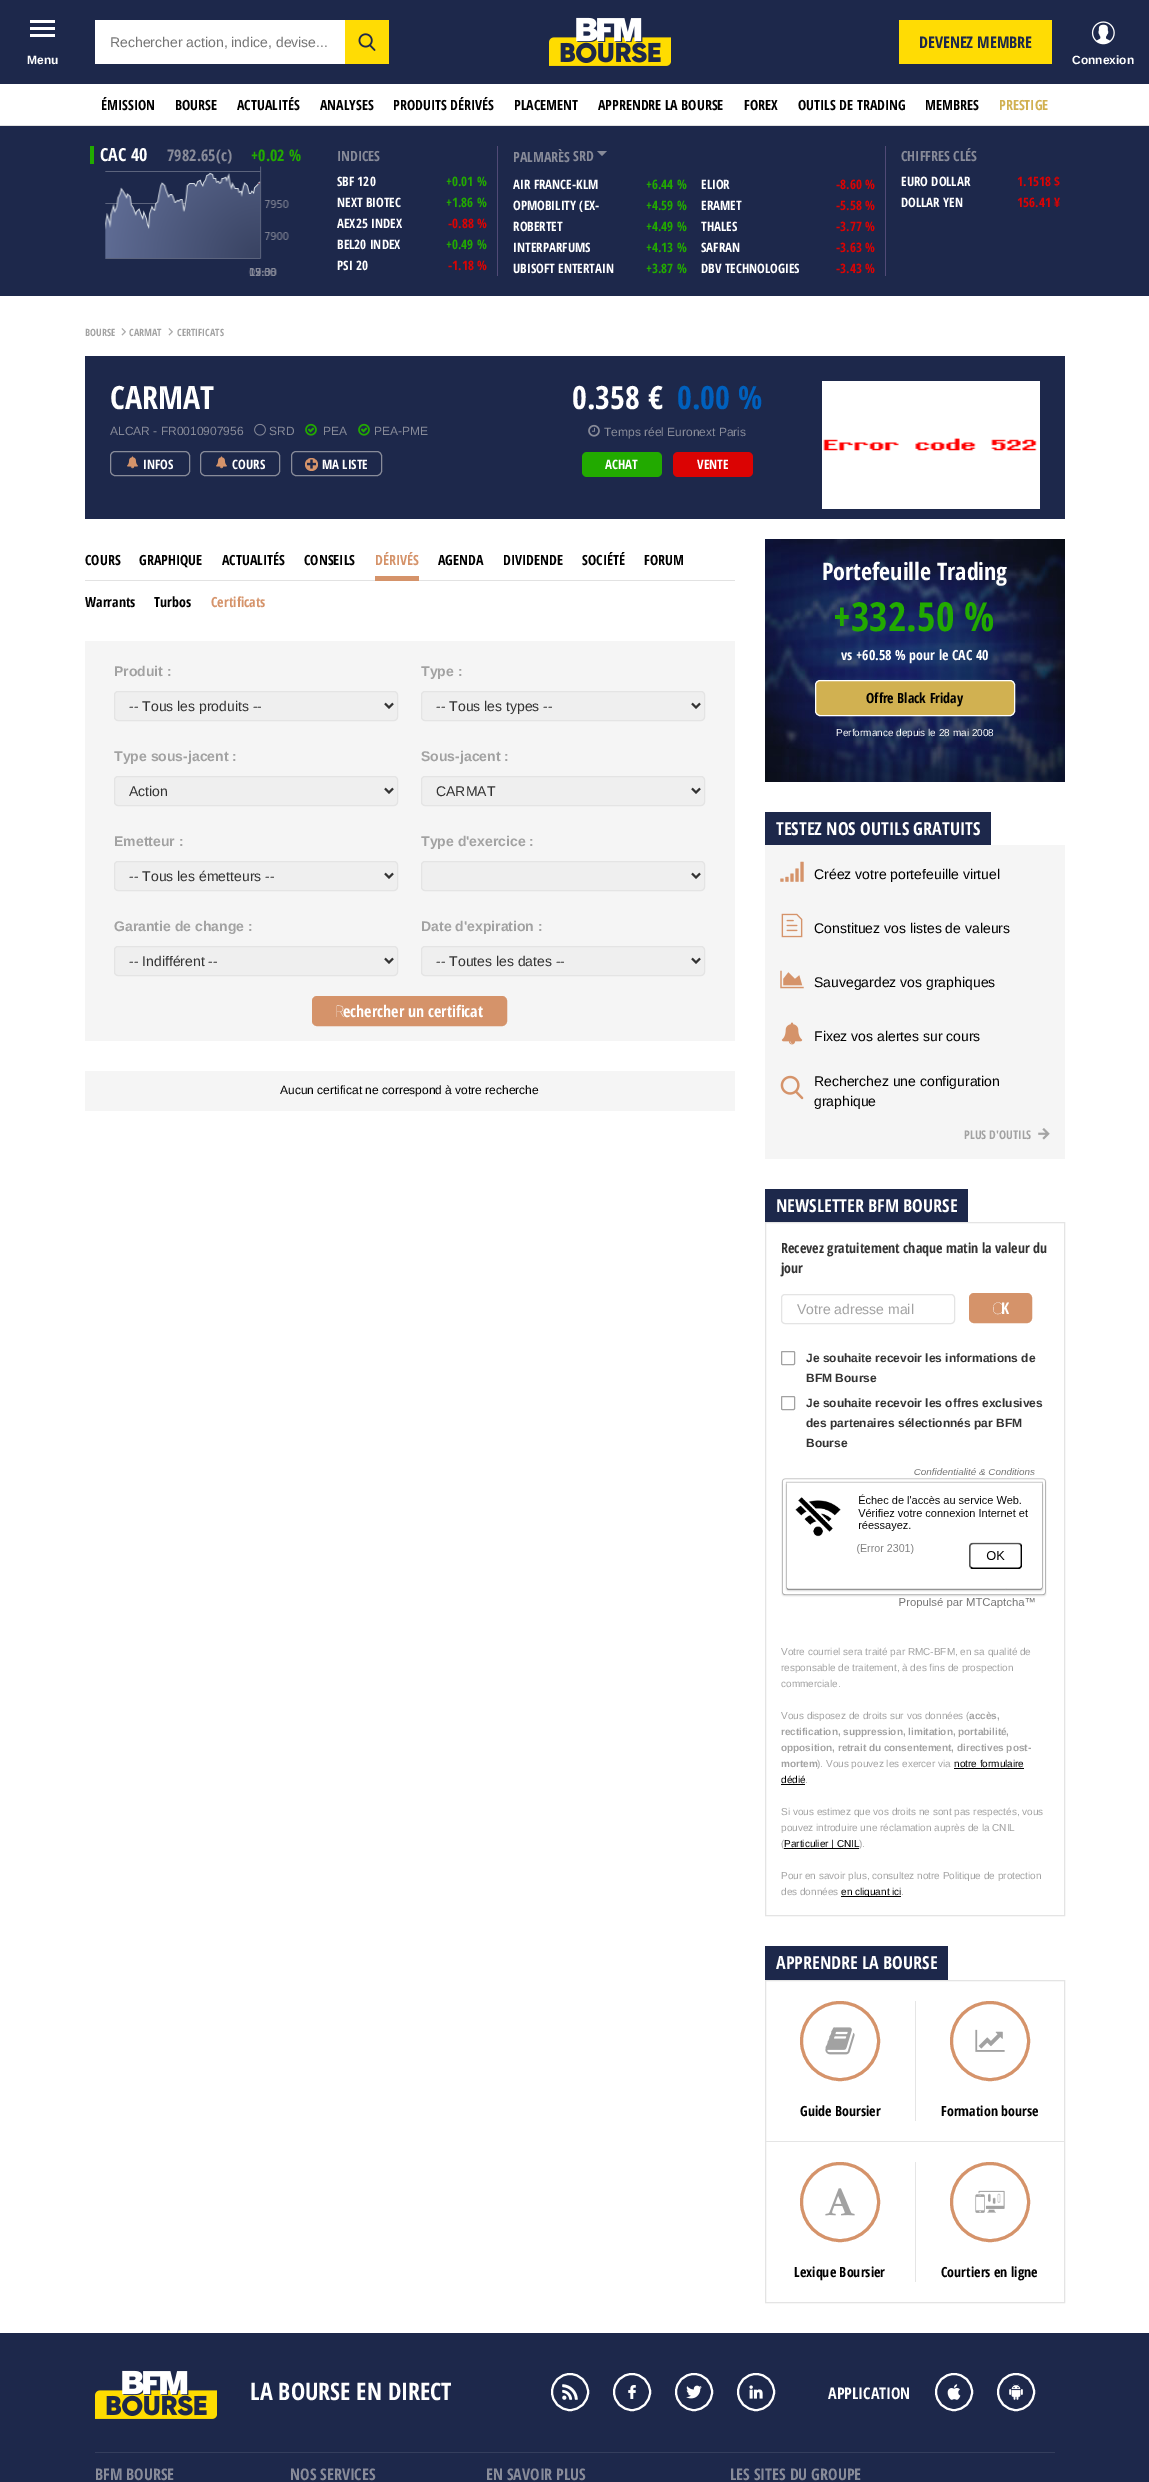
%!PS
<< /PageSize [1149 2482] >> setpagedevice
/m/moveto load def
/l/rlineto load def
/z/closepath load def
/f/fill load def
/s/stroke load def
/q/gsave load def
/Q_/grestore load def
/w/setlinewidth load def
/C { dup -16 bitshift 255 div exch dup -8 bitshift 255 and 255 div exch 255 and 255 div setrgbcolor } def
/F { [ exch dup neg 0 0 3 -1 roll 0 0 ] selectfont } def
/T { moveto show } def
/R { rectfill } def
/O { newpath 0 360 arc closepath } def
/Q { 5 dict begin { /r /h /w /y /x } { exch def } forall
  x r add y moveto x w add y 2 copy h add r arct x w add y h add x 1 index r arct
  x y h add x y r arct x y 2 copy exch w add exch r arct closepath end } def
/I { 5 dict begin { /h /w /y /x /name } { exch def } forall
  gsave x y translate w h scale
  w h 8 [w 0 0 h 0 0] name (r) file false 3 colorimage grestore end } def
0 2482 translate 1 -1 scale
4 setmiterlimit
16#FFFFFF C
0 0 1149 2482 R
16#1D284B C
0 0 1149 84 R
16#FFFFFF C
95 20 250 44 R
/LiberationSans-Regular 14 F
16#757575 C
(Rechercher action, indice, devise...) 110 47 T
16#FFDC04 C
345 20 44 44 R
(1.rgb) 358 33 18 18 I
16#FFFFFF C
30 20 25 3 R
30 27 25 3 R
30 34 25 3 R
/LiberationSans-Bold 12 F
(Menu) 27 64 T
(2.rgb) 549 17 122 49 I
16#FFDC04 C
899 20 153 44 R
/OpenSansCondensed-Bold 16 F
16#1D284B C
(DEVENEZ MEMBRE) 919 48 T
(3.rgb) 1091 21 24 24 I
/LiberationSans-Bold 12 F
16#FFFFFF C
(Connexion) 1072 64 T
16#E2E2E2 C
0 125 1149 1 R
/OpenSansCondensed-Bold 14 F
16#000000 C
(ÉMISSION) 101 110 T
(BOURSE) 175 110 T
(ACTUALITÉS) 237 110 T
(ANALYSES) 320 110 T
(PRODUITS DÉRIVÉS) 393 110 T
(PLACEMENT) 514 110 T
(APPRENDRE LA BOURSE) 598 110 T
(FOREX) 744 110 T
(OUTILS DE TRADING) 798 110 T
(MEMBRES) 925 110 T
16#D1B151 C
(PRESTIGE) 999 110 T
16#1D284B C
0 126 1149 170 R
16#22AA00 C
90 146 4 18 R
/OpenSansCondensed-Bold 18 F
16#FFFFFF C
(CAC 40) 100 161 T
/OpenSansCondensed-Bold 16 F
16#888B99 C
(7982.65\(c\)) 167 161 T
16#22AA00 C
(+0.02 %) 251 161 T
(4.rgb) 105 166 184 110 I
/OpenSansCondensed-Bold 14 F
16#888B99 C
(INDICES) 337 161 T
/OpenSansCondensed-Bold 13 F
16#FFFFFF C
(SBF 120) 337 186 T
16#22AA00 C
(+0.01 %) 446 186 T
16#FFFFFF C
(NEXT BIOTEC) 337 207 T
16#22AA00 C
(+1.86 %) 446 207 T
16#FFFFFF C
(AEX25 INDEX) 337 228 T
16#DB0303 C
(-0.88 %) 448 228 T
16#FFFFFF C
(BEL20 INDEX) 337 249 T
16#22AA00 C
(+0.49 %) 446 249 T
16#FFFFFF C
(PSI 20) 337 270 T
16#DB0303 C
(-1.18 %) 448 270 T
16#514A76 C
497 146 1 130 R
/OpenSansCondensed-Bold 14 F
16#888B99 C
(PALMARÈS) 513 162 T
(SRD) 573 161 T
597 151 m 10 0 l -5 5 l z f
/OpenSansCondensed-Bold 13 F
16#FFFFFF C
(AIR FRANCE-KLM) 513 189 T
16#22AA00 C
(+6.44 %) 646 189 T
16#FFFFFF C
(OPMOBILITY \(EX-) 513 210 T
16#22AA00 C
(+4.59 %) 646 210 T
16#FFFFFF C
(ROBERTET) 513 231 T
16#22AA00 C
(+4.49 %) 646 231 T
16#FFFFFF C
(INTERPARFUMS) 513 252 T
16#22AA00 C
(+4.13 %) 646 252 T
16#FFFFFF C
(UBISOFT ENTERTAIN) 513 273 T
16#22AA00 C
(+3.87 %) 646 273 T
16#FFFFFF C
(ELIOR) 701 189 T
16#DB0303 C
(-8.60 %) 836 189 T
16#FFFFFF C
(ERAMET) 701 210 T
16#DB0303 C
(-5.58 %) 836 210 T
16#FFFFFF C
(THALES) 701 231 T
16#DB0303 C
(-3.77 %) 836 231 T
16#FFFFFF C
(SAFRAN) 701 252 T
16#DB0303 C
(-3.63 %) 836 252 T
16#FFFFFF C
(DBV TECHNOLOGIES) 701 273 T
16#DB0303 C
(-3.43 %) 836 273 T
16#514A76 C
885 146 1 130 R
/OpenSansCondensed-Bold 14 F
16#888B99 C
(CHIFFRES CLÉS) 901 161 T
/OpenSansCondensed-Bold 13 F
16#FFFFFF C
(EURO DOLLAR) 901 186 T
16#DB0303 C
(1.1518 $) 1017 186 T
16#FFFFFF C
(DOLLAR YEN) 901 207 T
16#DB0303 C
(156.41 ¥) 1017 207 T
/OpenSansCondensed-Bold 10 F
16#A2A2A2 C
(BOURSE) 85 336 T
(5.rgb) 121 328 5 8 I
(CARMAT) 129 336 T
(5.rgb) 168 328 5 8 I
(CERTIFICATS) 177 336 T
16#1D284B C
85 356 980 163 R
/OpenSansCondensed-Bold 32 F
16#FFFFFF C
(CARMAT) 110 409 T
/LiberationSans-Regular 12 F
16#888B99 C
(ALCAR - FR0010907956) 110 435 T
(6.rgb) 254 423 12 13 I
(SRD) 269 435 T
(7.rgb) 305 423 12 13 I
(PEA) 323 435 T
(7.rgb) 358 423 12 13 I
(PEA-PME) 374 435 T
/OpenSansCondensed-Bold 32 F
16#FFFFFF C
(0.358 €) 572 409 T
16#0060BD C
(0.00 %) 677 409 T
(8.rgb) 588 424 12 13 I
/LiberationSans-Regular 12 F
16#888B99 C
(Temps réel Euronext Paris) 604 436 T
110.5 451.5 79 24 4.5 Q s
(9.rgb) 127 456 11 13 I
/OpenSansCondensed-Bold 13 F
16#FFFFFF C
(INFOS) 143 469 T
16#888B99 C
200.5 451.5 79 24 4.5 Q s
(9.rgb) 216 456 11 13 I
16#FFFFFF C
(COURS) 232 469 T
16#888B99 C
291.5 451.5 90 24 4.5 Q s
16#D5936A C
311.5 464.5 6.5 O f
(10.rgb) 307 459 9 10 I
16#FFFFFF C
(MA LISTE) 322 469 T
16#22AA00 C
582 452 80 25 5 Q f
16#FFFFFF C
(ACHAT) 605 469 T
16#DB0303 C
673 452 80 25 5 Q f
16#FFFFFF C
(VENTE) 697 469 T
(11.rgb) 822 381 218 128 I
16#E2E2E2 C
85 580 650 1 R
/OpenSansCondensed-Bold 14 F
16#000000 C
(COURS) 85 565 T
(GRAPHIQUE) 139 565 T
(ACTUALITÉS) 222 565 T
(CONSEILS) 304 565 T
16#D5936A C
375 576 44 5 R
(DÉRIVÉS) 375 565 T
16#000000 C
(AGENDA) 438 565 T
(DIVIDENDE) 503 565 T
(SOCIÉTÉ) 582 565 T
(FORUM) 644 565 T
(Warrants) 85 607 T
(Turbos) 154 607 T
16#D5936A C
(Certificats) 211 607 T
16#F5F5F5 C
85 641 650 400 R
/LiberationSans-Bold 14 F
16#A2A2A2 C
(Produit :) 114 676 T
16#EFEFEF C
114.5 691.5 283 29 3.5 Q q f Q_
16#E4E4E4 C
s
16#333333 C
2 w
385 703.5 m 4 4 l 4 -4 l s
/LiberationSans-Regular 14 F
(-- Tous les produits --) 129 711 T
/LiberationSans-Bold 14 F
16#A2A2A2 C
(Type :) 421 676 T
16#EFEFEF C
421.5 691.5 283 29 3.5 Q q f Q_
16#E4E4E4 C
1 w
s
16#333333 C
2 w
692 703.5 m 4 4 l 4 -4 l s
/LiberationSans-Regular 14 F
(-- Tous les types --) 436 711 T
/LiberationSans-Bold 14 F
16#A2A2A2 C
(Type sous-jacent :) 114 761 T
16#EFEFEF C
114.5 776.5 283 29 3.5 Q q f Q_
16#E4E4E4 C
1 w
s
16#333333 C
2 w
385 788.5 m 4 4 l 4 -4 l s
/LiberationSans-Regular 14 F
(Action) 129 796 T
/LiberationSans-Bold 14 F
16#A2A2A2 C
(Sous-jacent :) 421 761 T
16#EFEFEF C
421.5 776.5 283 29 3.5 Q q f Q_
16#E4E4E4 C
1 w
s
16#333333 C
2 w
692 788.5 m 4 4 l 4 -4 l s
/LiberationSans-Regular 14 F
(CARMAT) 436 796 T
/LiberationSans-Bold 14 F
16#A2A2A2 C
(Emetteur :) 114 846 T
16#EFEFEF C
114.5 861.5 283 29 3.5 Q q f Q_
16#E4E4E4 C
1 w
s
16#333333 C
2 w
385 873.5 m 4 4 l 4 -4 l s
/LiberationSans-Regular 14 F
(-- Tous les émetteurs --) 129 881 T
/LiberationSans-Bold 14 F
16#A2A2A2 C
(Type d'exercice :) 421 846 T
16#EFEFEF C
421.5 861.5 283 29 3.5 Q q f Q_
16#E4E4E4 C
1 w
s
16#333333 C
2 w
692 873.5 m 4 4 l 4 -4 l s
16#A2A2A2 C
(Garantie de change :) 114 931 T
16#EFEFEF C
114.5 946.5 283 29 3.5 Q q f Q_
16#E4E4E4 C
1 w
s
16#333333 C
2 w
385 958.5 m 4 4 l 4 -4 l s
/LiberationSans-Regular 14 F
(-- Indifférent --) 129 966 T
/LiberationSans-Bold 14 F
16#A2A2A2 C
(Date d'expiration :) 421 931 T
16#EFEFEF C
421.5 946.5 283 29 3.5 Q q f Q_
16#E4E4E4 C
1 w
s
16#333333 C
2 w
692 958.5 m 4 4 l 4 -4 l s
/LiberationSans-Regular 14 F
(-- Toutes les dates --) 436 966 T
16#D5936A C
313 997 193 28 4 Q q f Q_
s
/NotoSans-Thin 16 F
16#FFFFFF C
(R) 335 1017 T
/OpenSansCondensed-Bold 16 F
(echercher un certificat) 343 1017 T
16#F5F5F5 C
85 1071 650 40 R
/LiberationSans-Regular 12 F
16#000000 C
(Aucun certificat ne correspond à votre recherche) 280 1094 T
(12.rgb) 765 539 300 243 I
/OpenSansCondensed-Bold 24 F
16#FFFFFF C
(Portefeuille Trading) 822 580 T
/OpenSansCondensed-Bold 40 F
16#22AA00 C
(+332.50 %) 833 631 T
/OpenSansCondensed-Bold 14 F
16#FFFFFF C
(vs +60.58 % pour le CAC 40) 841 660 T
16#D1B151 C
815.5 680.5 199 35 4.5 Q q f Q_
16#FFFFFF C
1 w
s
16#000000 C
(Offre Black Friday) 866 703 T
/LiberationSans-Regular 10 F
16#FFFFFF C
(Performance depuis le 28 mai 2008) 836 736 T
16#1D284B C
765 812 226 33 R
/OpenSansCondensed-Bold 18 F
16#FFFFFF C
(TESTEZ NOS OUTILS GRATUITS) 776 835 T
16#F5F5F5 C
765 845 300 314 R
(13.rgb) 780 861 24 21 I
/LiberationSans-Regular 14 F
16#000000 C
(Créez votre portefeuille virtuel) 814 879 T
(14.rgb) 781 913 22 25 I
(Constituez vos listes de valeurs) 814 933 T
(15.rgb) 780 970 24 19 I
(Sauvegardez vos graphiques) 814 987 T
(16.rgb) 781 1022 22 23 I
(Fixez vos alertes sur cours) 814 1041 T
(17.rgb) 780 1075 24 25 I
(Recherchez une configuration) 814 1086 T
(graphique) 814 1106 T
/OpenSansCondensed-Bold 12 F
16#A2A2A2 C
(PLUS D'OUTILS) 964 1139 T
(18.rgb) 1038 1128 12 12 I
16#1D284B C
765 1189 203 33 R
/OpenSansCondensed-Bold 18 F
16#FFFFFF C
(NEWSLETTER BFM BOURSE) 776 1212 T
16#E4E4E4 C
765.5 1222.5 299 693 rectstroke
/OpenSansCondensed-Bold 14 F
16#333333 C
(Recevez gratuitement chaque matin la valeur du) 781 1253 T
(jour) 781 1273 T
16#E4E4E4 C
781.5 1294.5 173 29 3.5 Q s
/LiberationSans-Regular 14 F
16#A2A2A2 C
(Votre adresse mail) 797 1314 T
16#D5936A C
970 1294 61 28 4 Q q f Q_
2 w
s
/NotoSans-Thin 16 F
16#FFFFFF C
(O) 992 1314 T
/OpenSansCondensed-Bold 16 F
(K) 1001 1314 T
16#A2A2A2 C
1 w
781.5 1351.5 13 13 1 Q s
/LiberationSans-Bold 12 F
16#333333 C
(Je souhaite recevoir les informations de) 806 1362 T
(BFM Bourse) 806 1382 T
16#A2A2A2 C
781.5 1396.5 13 13 1 Q s
16#333333 C
(Je souhaite recevoir les offres exclusives) 806 1407 T
(des partenaires sélectionnés par BFM) 806 1427 T
(Bourse) 806 1447 T
(19.rgb) 781 1468 266 140 I
/LiberationSans-Regular 10 F
16#A2A2A2 C
(Votre courriel sera traité par RMC-BFM, en sa qualité de) 781 1655 T
(responsable de traitement, à des fins de prospection) 781 1671 T
(commerciale.) 781 1687 T
(Vous disposez de droits sur vos données \() 781 1719 T
/LiberationSans-Bold 10 F
(accès,) 969 1719 T
(rectification, suppression, limitation, portabilité,) 781 1735 T
(opposition, retrait du consentement, directives post-) 781 1751 T
(mortem) 781 1767 T
/LiberationSans-Regular 10 F
(\). Vous pouvez les exercer via) 817 1767 T
16#000000 C
(notre formulaire) 954 1767 T
954 1768 70 1 R
(dédié) 781 1783 T
781 1784 24 1 R
16#A2A2A2 C
(.) 805 1783 T
(Si vous estimez que vos droits ne sont pas respectés, vous) 781 1815 T
(pouvez introduire une réclamation auprès de la CNIL) 781 1831 T
(\() 781 1847 T
16#000000 C
784 1848 75 1 R
(Particulier | CNIL) 784 1847 T
16#A2A2A2 C
(\).) 859 1847 T
(Pour en savoir plus, consultez notre Politique de protection) 781 1879 T
(des données) 781 1895 T
16#000000 C
841 1896 60 1 R
(en cliquant ici) 841 1895 T
16#A2A2A2 C
(.) 901 1895 T
16#1D284B C
765 1946 183 34 R
/OpenSansCondensed-Bold 18 F
16#FFFFFF C
(APPRENDRE LA BOURSE) 776 1969 T
16#E4E4E4 C
765.5 1980.5 299 322 rectstroke
16#E5E5E5 C
766 2141 298 1 R
16#D5936A C
3 w
840 2041 38.5 O s
(20.rgb) 825 2027 30 28 I
/OpenSansCondensed-Bold 14 F
16#000000 C
(Guide Boursier) 800 2116 T
16#E5E5E5 C
915 2001 1 120 R
16#D5936A C
990 2041 38.5 O s
(21.rgb) 975 2029 30 23 I
16#000000 C
(Formation bourse) 941 2116 T
16#D5936A C
840 2202 38.5 O s
(22.rgb) 825 2188 30 28 I
16#000000 C
(Lexique Boursier) 794 2277 T
16#E5E5E5 C
915 2162 1 120 R
16#D5936A C
990 2202 38.5 O s
(23.rgb) 975 2190 30 23 I
16#000000 C
(Courtiers en ligne) 941 2277 T
16#1D284B C
0 2333 1149 149 R
16#343E5D C
95 2452 960 1 R
(2.rgb) 95 2370 122 49 I
/OpenSansCondensed-Bold 24 F
16#FFFFFF C
(LA BOURSE EN DIRECT) 250 2400 T
2 w
570 2392 18 O s
632 2392 18 O s
694 2392 18 O s
756 2392 18 O s
954 2392 18 O s
1016 2392 18 O s
(24.rgb) 562 2384 16 16 I
(25.rgb) 628 2385 8 14 I
(26.rgb) 686 2385 16 14 I
(27.rgb) 749 2385 14 14 I
/OpenSansCondensed-Bold 16 F
(APPLICATION) 828 2399 T
(28.rgb) 947 2384 14 16 I
(29.rgb) 1009 2384 14 16 I
16#888B99 C
(BFM BOURSE) 95 2480 T
(NOS SERVICES) 290 2480 T
(EN SAVOIR PLUS) 486 2480 T
(LES SITES DU GROUPE) 730 2480 T
showpage
